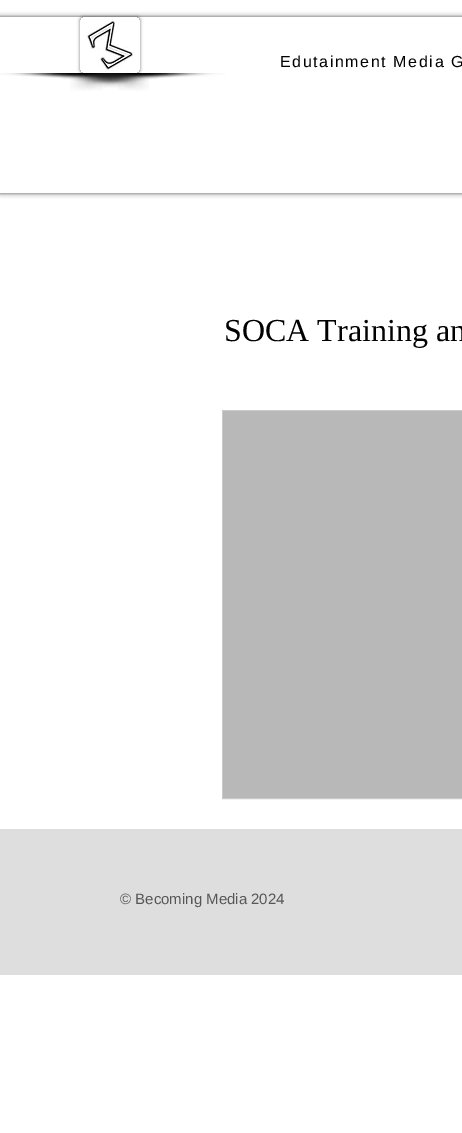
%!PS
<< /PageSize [462 1133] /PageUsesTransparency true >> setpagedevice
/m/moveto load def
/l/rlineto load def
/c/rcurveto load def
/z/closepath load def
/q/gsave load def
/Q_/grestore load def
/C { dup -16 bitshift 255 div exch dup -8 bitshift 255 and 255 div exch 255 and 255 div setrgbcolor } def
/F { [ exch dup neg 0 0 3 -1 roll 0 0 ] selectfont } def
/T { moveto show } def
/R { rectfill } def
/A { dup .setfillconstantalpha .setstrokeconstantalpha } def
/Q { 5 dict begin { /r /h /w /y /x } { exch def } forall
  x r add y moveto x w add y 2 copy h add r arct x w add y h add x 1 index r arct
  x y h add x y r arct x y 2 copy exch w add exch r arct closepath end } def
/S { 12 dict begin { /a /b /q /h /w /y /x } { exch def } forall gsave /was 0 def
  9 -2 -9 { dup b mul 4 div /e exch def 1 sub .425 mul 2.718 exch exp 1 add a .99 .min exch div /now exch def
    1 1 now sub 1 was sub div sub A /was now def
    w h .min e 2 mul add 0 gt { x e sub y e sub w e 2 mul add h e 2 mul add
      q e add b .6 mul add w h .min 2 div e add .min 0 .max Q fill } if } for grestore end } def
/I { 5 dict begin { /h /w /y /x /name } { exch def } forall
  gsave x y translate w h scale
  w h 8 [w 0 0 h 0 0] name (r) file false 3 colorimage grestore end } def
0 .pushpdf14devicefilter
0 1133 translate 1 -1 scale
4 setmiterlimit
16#FFFFFF C
0 0 462 1133 R
q
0 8 m 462 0 l 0 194 l -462 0 l z 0 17 m 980 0 l 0 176 l -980 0 l z eoclip newpath
16#000000 C
0 17 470 176 0 2.5 .7 S
Q_
q
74 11 m 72 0 l 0 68 l -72 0 l z 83 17 m 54 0 l 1.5 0 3 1.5 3 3 c 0 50 l 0 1.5 -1.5 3 -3 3 c -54 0 l -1.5 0 -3 -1.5 -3 -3 c 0 -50 l 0 -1.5 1.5 -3 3 -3 c z eoclip newpath
16#000000 C
80 17 60 56 3 1.5 .5 S
Q_
(1.rgb) 86 19 48 52 I
(3.rgb) 71 73 154 18 I
(2.rgb) 0 73 149 18 I
/LiberationSans-Regular 16 F
16#000000 C
280 67 m 1.6 0 (Edutainment Media G) ashow
/LiberationSerif-Regular 32 F
(SOCA Training an) 224 341 T
16#CACACA C
222.5 410.5 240 388 rectstroke
16#B8B8B8 C
223 411 239 387 R
16#DEDEDE C
0 829 462 146 R
/LiberationSans-Regular 15 F
16#575757 C
(© Becoming Media 2024) 120 904 T
.poppdf14devicefilter showpage
